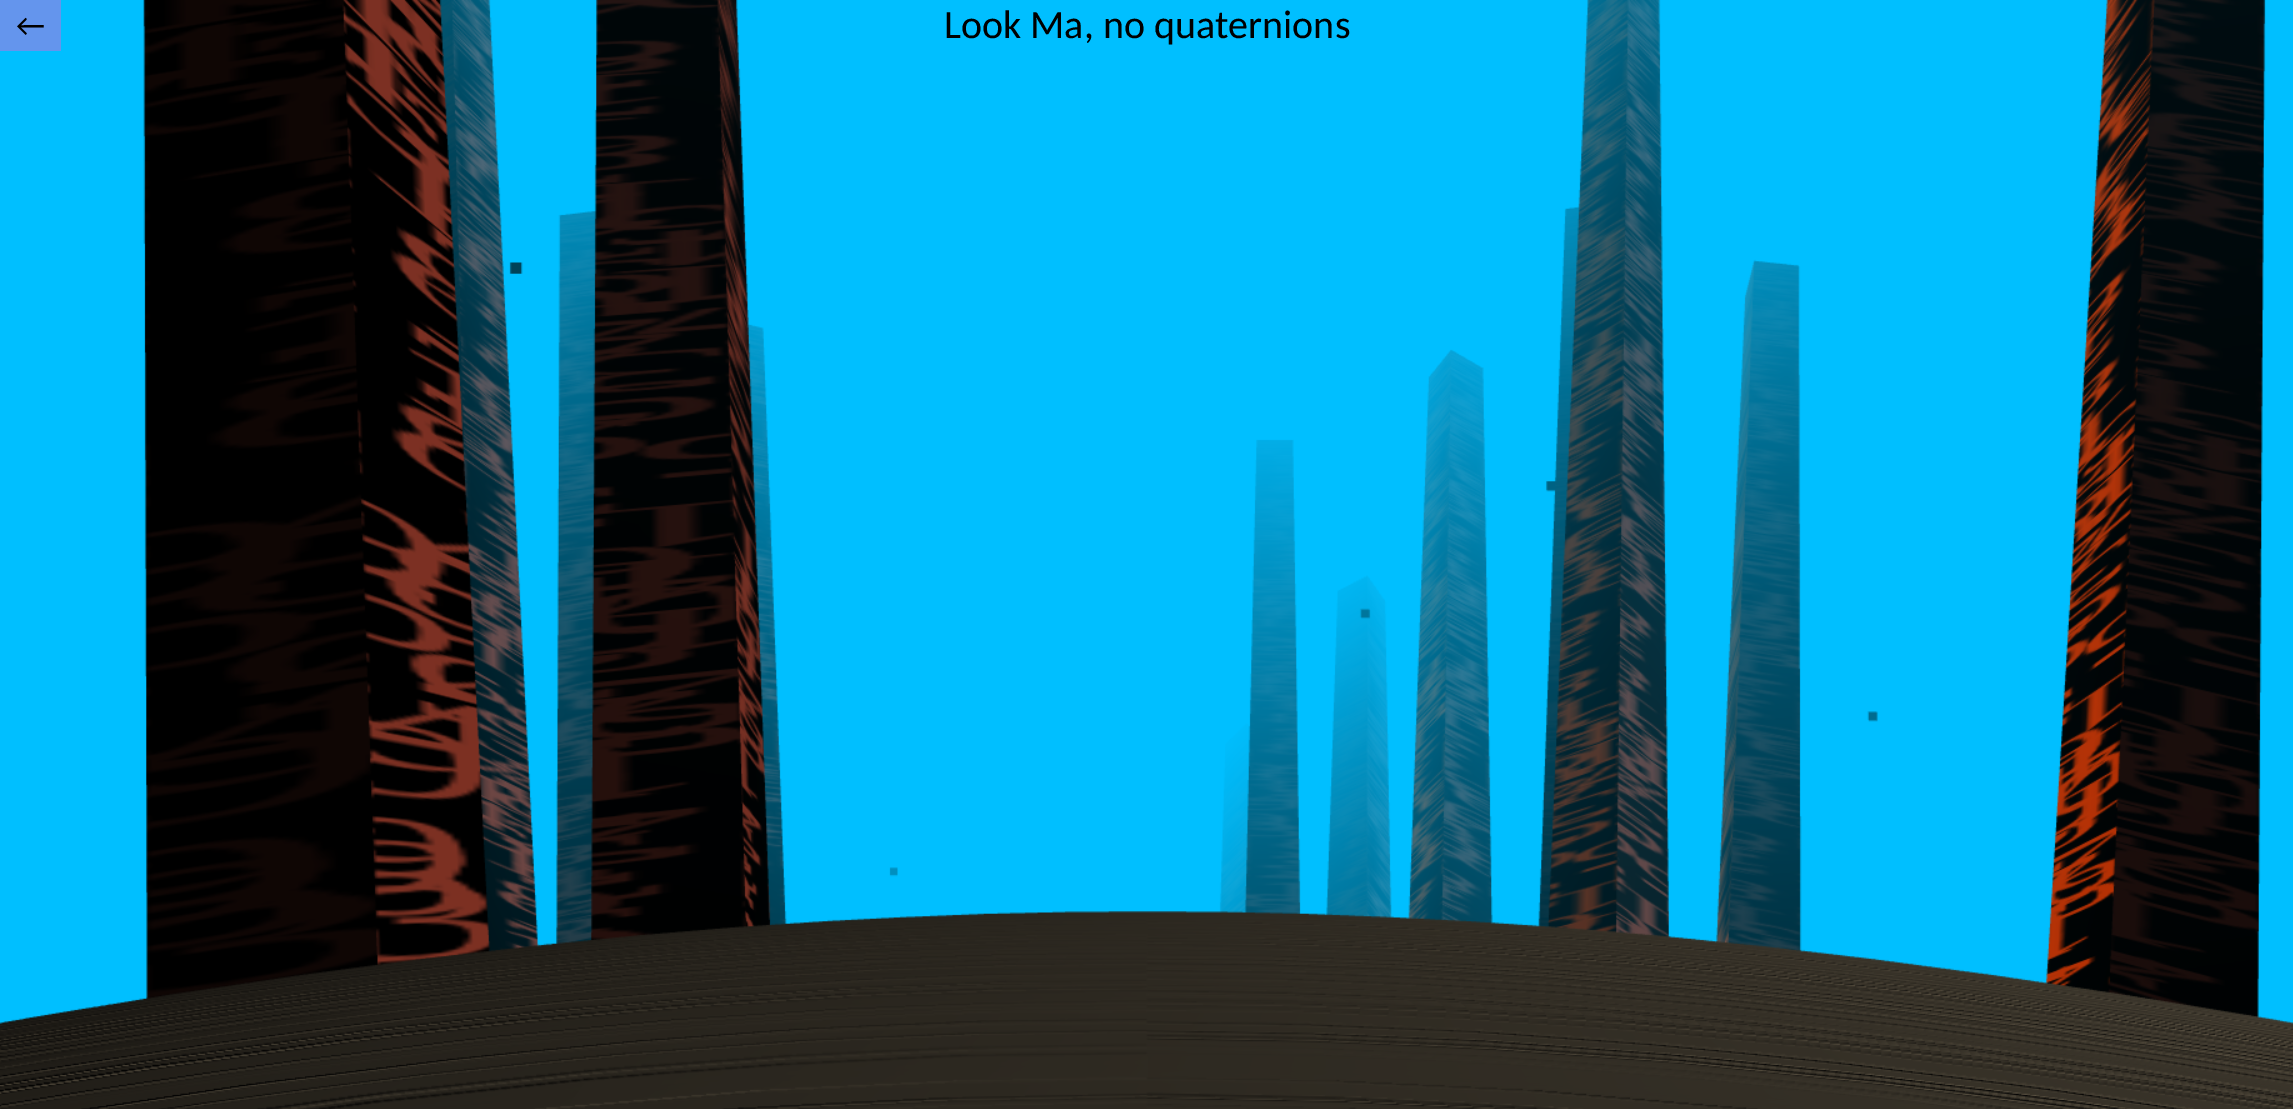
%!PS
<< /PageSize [2293 1109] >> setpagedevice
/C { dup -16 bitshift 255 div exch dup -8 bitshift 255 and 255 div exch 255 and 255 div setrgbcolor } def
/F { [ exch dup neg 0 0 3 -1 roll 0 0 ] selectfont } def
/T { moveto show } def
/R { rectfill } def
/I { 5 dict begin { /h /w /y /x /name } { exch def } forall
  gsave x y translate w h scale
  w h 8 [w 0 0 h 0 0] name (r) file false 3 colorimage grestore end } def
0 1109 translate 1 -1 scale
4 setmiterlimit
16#FFFFFF C
0 0 2293 1109 R
(1.rgb) 0 0 2293 1109 I
16#6495ED C
0 0 61 51 R
/Carlito-Regular 32 F
16#000000 C
(←) 16 36 T
/Carlito-Regular 40 F
(Look Ma, no quaternions) 944 38 T
showpage
